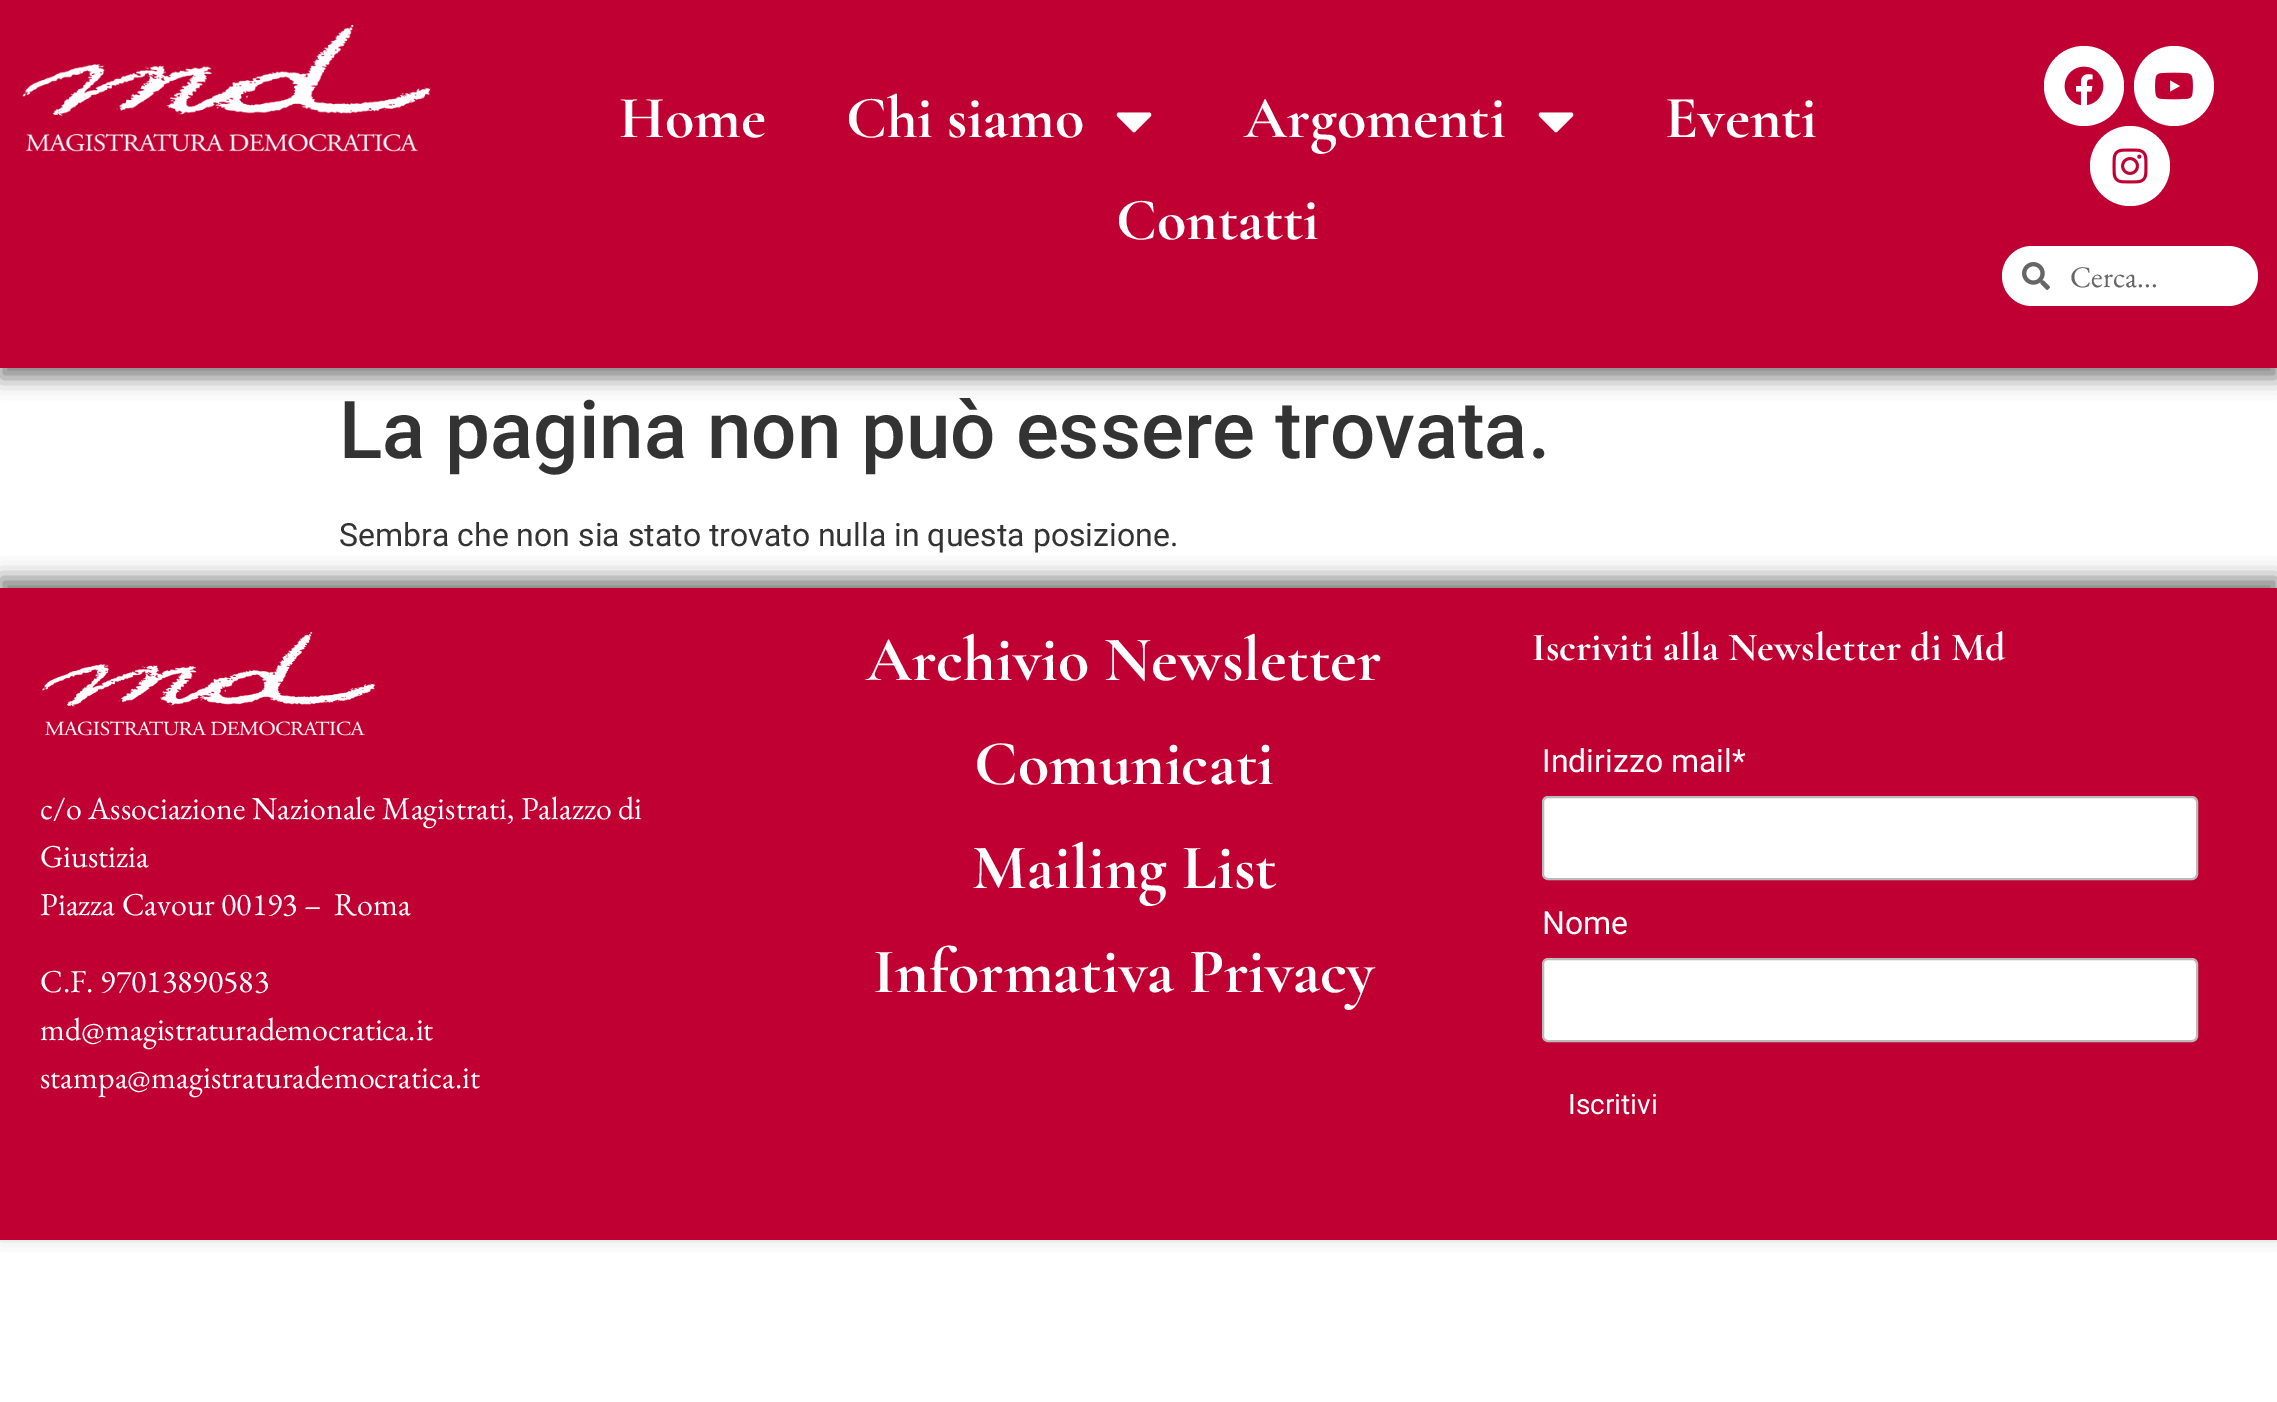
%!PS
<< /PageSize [2277 1402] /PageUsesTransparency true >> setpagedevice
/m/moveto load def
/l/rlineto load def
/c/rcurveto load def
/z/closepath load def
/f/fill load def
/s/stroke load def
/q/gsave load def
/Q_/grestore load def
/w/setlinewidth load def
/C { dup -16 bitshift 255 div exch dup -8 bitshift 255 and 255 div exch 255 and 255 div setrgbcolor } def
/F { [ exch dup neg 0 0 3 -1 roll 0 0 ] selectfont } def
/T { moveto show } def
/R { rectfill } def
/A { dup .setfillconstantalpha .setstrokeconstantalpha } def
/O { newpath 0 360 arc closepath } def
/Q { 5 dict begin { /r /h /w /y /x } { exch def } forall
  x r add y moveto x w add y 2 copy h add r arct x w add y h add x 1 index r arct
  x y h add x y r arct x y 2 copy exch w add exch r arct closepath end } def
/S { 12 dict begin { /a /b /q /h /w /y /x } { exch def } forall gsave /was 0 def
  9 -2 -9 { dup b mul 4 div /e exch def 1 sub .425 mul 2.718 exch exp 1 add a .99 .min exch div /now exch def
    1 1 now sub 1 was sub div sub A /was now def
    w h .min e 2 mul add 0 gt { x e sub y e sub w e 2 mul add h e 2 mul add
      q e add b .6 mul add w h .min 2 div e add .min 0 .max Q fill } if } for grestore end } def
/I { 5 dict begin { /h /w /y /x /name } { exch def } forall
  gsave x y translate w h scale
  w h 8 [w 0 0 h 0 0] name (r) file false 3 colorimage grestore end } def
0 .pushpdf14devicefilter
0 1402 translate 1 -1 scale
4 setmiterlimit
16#FFFFFF C
0 0 2277 1402 R
16#000000 C
0 10 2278 368 0 10 .5 S
16#C00033 C
0 0 2277 368 R
(1.rgb) 22 24 409 128 I
/CormorantGaramond-Bold 60 F
16#FFFFFF C
(Home) 619 137 T
(Chi siamo) 846 137 T
1119 112.5 m 30 0 l 2 0 3 2.5 1.5 4 c -15 15 l -1 1 -2.5 1 -3 0 c -15 -15 l -1.5 -1.5 -.5 -4 1.5 -4 c z f
(Argomenti) 1244 137 T
1541 112.5 m 30 0 l 2 0 3 2.5 1.5 4 c -15 15 l -1 1 -2.5 1 -3 0 c -15 -15 l -1.5 -1.5 -.5 -4 1.5 -4 c z f
(Eventi) 1665 137 T
(Contatti) 1116 239 T
2084 86 40 O f
(2.rgb) 2064 66 40 40 I
2174 86 40 O f
(3.rgb) 2155 72 38 28 I
2130 166 40 O f
(4.rgb) 2112 148 36 36 I
2002 246 256 60 30 Q f
(5.rgb) 2022 262 28 28 I
/EBGaramond-Regular 30 F
16#666666 C
(Cerca...) 2070 287 T
/Roboto-Medium 80 F
16#333333 C
(La pagina non può essere trovata.) 339 458 T
/Roboto-Regular 32 F
(Sembra che non sia stato trovato nulla in questa posizione.) 339 546 T
16#000000 C
0 578 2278 652 0 10 .5 S
16#C00033 C
0 588 2277 652 R
(6.rgb) 42 632 334 104 I
/EBGaramond-Regular 32 F
16#FFFFFF C
(c/o Associazione Nazionale Magistrati, Palazzo di) 40 819 T
(Giustizia) 40 867 T
(Piazza Cavour 00193 –  Roma) 40 915 T
(C.F. 97013890583) 40 992 T
(md@magistraturademocratica.it) 40 1040 T
(stampa@magistraturademocratica.it) 40 1088 T
/CormorantGaramond-Bold 64 F
(Archivio Newsletter) 866 680 T
(Comunicati) 974 784 T
(Mailing List) 972 888 T
(Informativa Privacy) 873 992 T
/CormorantGaramond-Bold 40 F
(Iscriviti alla Newsletter di Md) 1532 660 T
/Roboto-Regular 32 F
(Indirizzo mail*) 1542 772 T
1543 797 654 82 5 Q q f Q_
16#BBBBBB C
2 w
s
16#FFFFFF C
(Nome) 1542 934 T
1543 959 654 82 5 Q q f Q_
16#BBBBBB C
s
/Roboto-Regular 28 F
16#FFFFFF C
(Iscritivi) 1568 1114 T
.poppdf14devicefilter showpage
